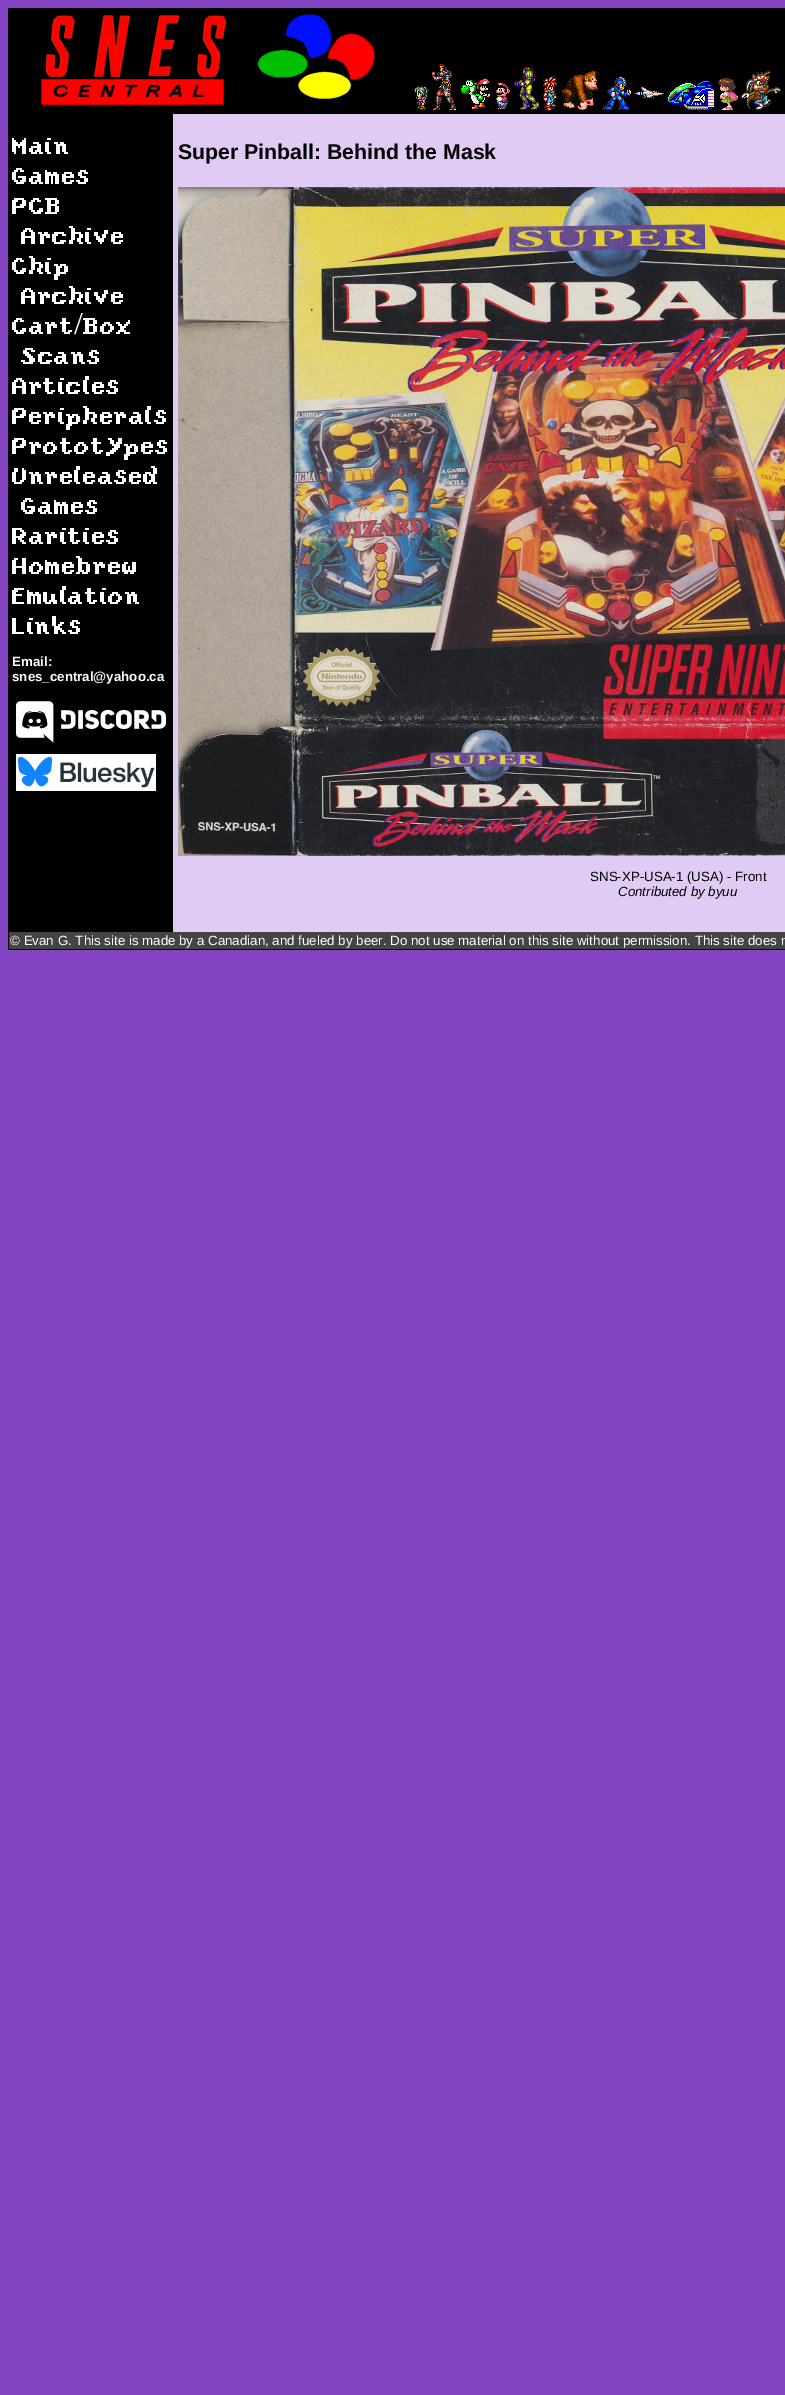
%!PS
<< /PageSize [785 2395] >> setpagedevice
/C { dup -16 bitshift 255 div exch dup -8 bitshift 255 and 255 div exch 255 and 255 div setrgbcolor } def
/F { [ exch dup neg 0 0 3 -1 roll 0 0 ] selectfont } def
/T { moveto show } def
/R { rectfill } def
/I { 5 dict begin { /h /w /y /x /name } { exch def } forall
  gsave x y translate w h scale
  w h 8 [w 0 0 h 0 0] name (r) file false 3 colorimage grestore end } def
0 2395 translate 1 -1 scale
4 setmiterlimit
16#8345C4 C
0 0 785 2395 R
16#000000 C
8 8 777 1 R
8 949 777 1 R
8 8 1 942 R
9 9 776 105 R
(1.rgb) 41 14 334 91 I
(2.rgb) 414 86 15 24 I
(3.rgb) 432 64 24 46 I
(4.rgb) 461 79 29 30 I
(5.rgb) 496 82 14 27 I
(6.rgb) 514 67 26 43 I
(7.rgb) 543 76 14 34 I
(8.rgb) 561 70 37 40 I
(9.rgb) 602 76 30 34 I
(10.rgb) 635 87 29 11 I
(11.rgb) 668 81 46 29 I
(12.rgb) 718 78 20 32 I
(13.rgb) 741 71 40 39 I
9 114 164 818 R
/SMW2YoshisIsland-Regular 32 F
16#FFFFFF C
(Main) 12 154 T
(Games) 12 184 T
(PCB) 12 214 T
(Archive) 21 244 T
(Chip) 12 274 T
(Archive) 21 304 T
(Cart) 12 334 T
/LiberationSerif-Regular 32 F
(/) 74 334 T
/SMW2YoshisIsland-Regular 32 F
(Box) 83 334 T
(Scans) 21 364 T
(Articles) 12 394 T
(Peripherals) 12 424 T
(Prototypes) 12 454 T
(Unreleased) 12 484 T
(Games) 21 514 T
(Rarities) 12 544 T
(Homebrew) 12 574 T
(Emulation) 12 604 T
(Links) 12 634 T
/LiberationSans-Bold 13.33 F
(Email:) 12 666 T
(snes_central@yahoo.ca) 12 681 T
(14.rgb) 16 701 150 42 I
(15.rgb) 16 754 140 37 I
16#E0CBF5 C
173 114 612 818 R
/LiberationSans-Bold 21.3 F
16#000000 C
(Super Pinball: Behind the Mask) 178 159 T
(16.rgb) 178 187 607 669 I
/LiberationSans-Regular 13.33 F
(SNS-XP-USA-1 \(USA\) - Front) 590 881 T
/LiberationSans-Italic 13.33 F
(Contributed by byuu) 618 896 T
16#444444 C
9 932 776 17 R
/LiberationSans-Regular 13.33 F
16#FFFFFF C
(© Evan G. This site is made by a Canadian, and fueled by beer. Do not use material on this site without permission. This site does n) 10 945 T
showpage
